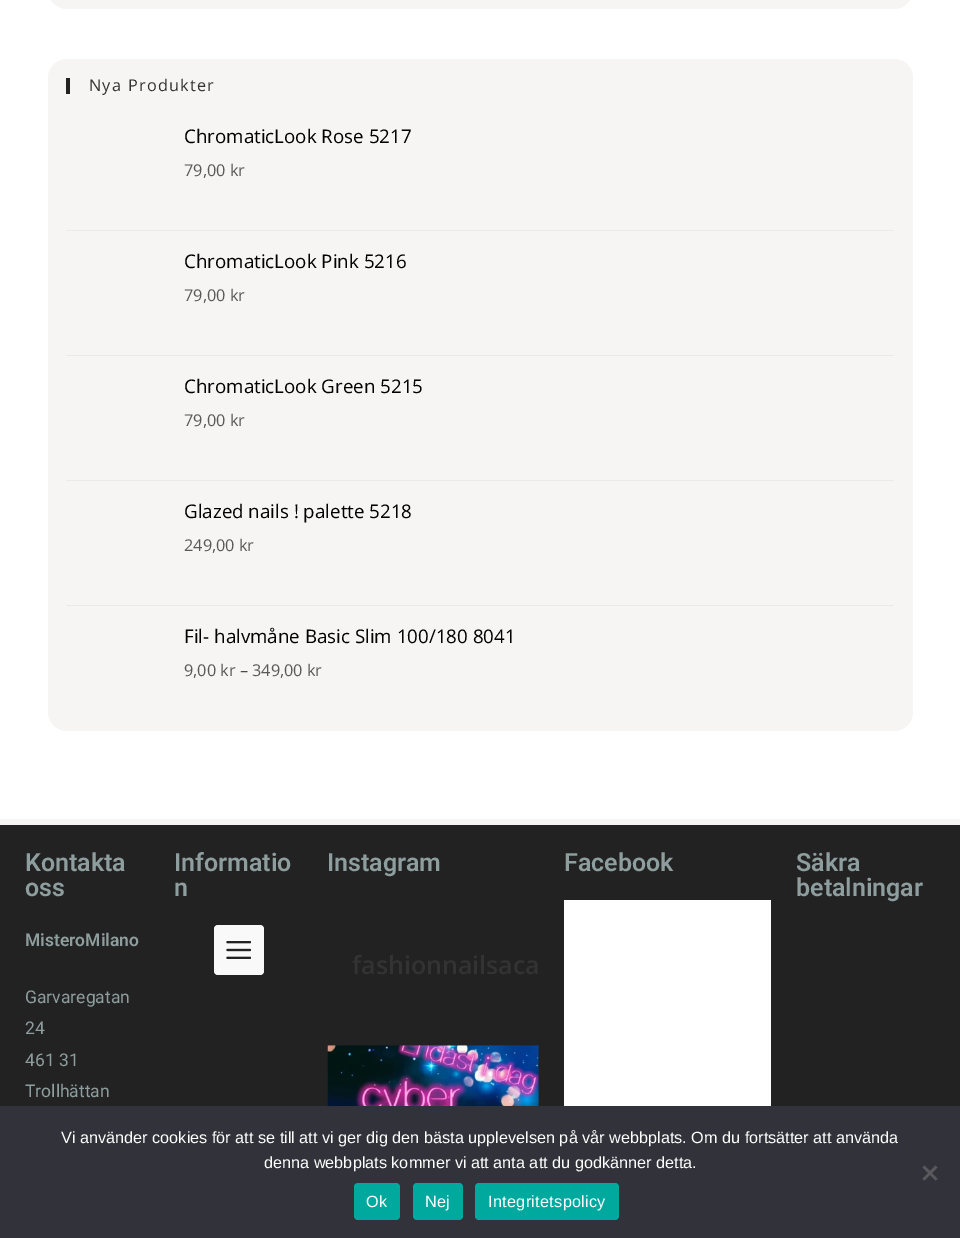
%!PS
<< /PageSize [960 1238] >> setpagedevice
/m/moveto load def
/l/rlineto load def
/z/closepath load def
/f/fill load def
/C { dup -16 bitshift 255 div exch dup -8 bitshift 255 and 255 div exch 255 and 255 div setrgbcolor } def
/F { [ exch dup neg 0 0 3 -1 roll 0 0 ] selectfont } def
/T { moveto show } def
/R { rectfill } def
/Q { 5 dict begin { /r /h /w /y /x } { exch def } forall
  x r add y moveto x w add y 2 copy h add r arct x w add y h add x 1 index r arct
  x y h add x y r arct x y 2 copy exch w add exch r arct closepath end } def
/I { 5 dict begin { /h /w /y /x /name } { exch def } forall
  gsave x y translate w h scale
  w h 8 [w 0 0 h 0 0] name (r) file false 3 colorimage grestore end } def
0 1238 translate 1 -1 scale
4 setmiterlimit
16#FFFFFF C
0 0 960 1238 R
16#F7F4F4 C
48 -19 865 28 19 Q f
48 59 865 672 19 Q f
16#222222 C
66 78 4 16 R
/OpenSans-Regular 16.25 F
16#333333 C
89 91 m 1.25 0 (Nya Produkter) ashow
16#EAEAEA C
66 230 828 1 R
/OpenSans-Regular 18.75 F
16#000000 C
(ChromaticLook Rose 5217) 184 143 T
/OpenSans-Regular 16.25 F
16#595959 C
(79,00 kr) 184 176 T
16#EAEAEA C
66 355 828 1 R
/OpenSans-Regular 18.75 F
16#000000 C
(ChromaticLook Pink 5216) 184 268 T
/OpenSans-Regular 16.25 F
16#595959 C
(79,00 kr) 184 301 T
16#EAEAEA C
66 480 828 1 R
/OpenSans-Regular 18.75 F
16#000000 C
(ChromaticLook Green 5215) 184 393 T
/OpenSans-Regular 16.25 F
16#595959 C
(79,00 kr) 184 426 T
16#EAEAEA C
66 605 828 1 R
/OpenSans-Regular 18.75 F
16#000000 C
(Glazed nails ! palette 5218) 184 518 T
/OpenSans-Regular 16.25 F
16#595959 C
(249,00 kr) 184 551 T
/OpenSans-Regular 18.75 F
16#000000 C
(Fil- halvmåne Basic Slim 100/180 8041) 184 643 T
/OpenSans-Regular 16.25 F
16#595959 C
(9,00 kr) 184 676 T
16#4A4A4A C
(–) 240 676 T
16#595959 C
(349,00 kr) 252 676 T
16#F7F4F4 C
0 819 960 6 R
16#222222 C
0 825 960 281 R
/Roboto-SemiBold 25 F
16#8E9D9D C
(Kontakta) 25 871 T
(oss) 25 896 T
/Roboto-SemiBold 17.5 F
(MisteroMilano) 25 946 T
/Roboto-Regular 17.5 F
(Garvaregatan) 25 1003 T
(24) 25 1034 T
(461 31) 25 1066 T
(Trollhättan) 25 1097 T
/Roboto-SemiBold 25 F
(Informatio) 174 871 T
(n) 174 896 T
16#F9F9F9 C
214 925 50 50 4 Q f
(1.rgb) 226 941 25 18 I
16#8E9D9D C
(Instagram) 327 871 T
/OpenSans-SemiBold 25 F
16#333333 C
(fashionnailsaca) 352 974 T
(2.rgb) 327 1045 212 61 I
/Roboto-SemiBold 25 F
16#8E9D9D C
(Facebook) 564 871 T
16#FFFFFF C
564 900 207 206 R
16#8E9D9D C
(Säkra) 796 871 T
(betalningar) 796 896 T
16#32323A C
0 1106 960 132 R
/LiberationSans-Regular 16.25 F
16#FFFFFF C
(Vi använder cookies för att se till att vi ger dig den bästa upplevelsen på vår webbplats. Om du fortsätter att använda) 61 1143 T
(denna webbplats kommer vi att anta att du godkänner detta.) 264 1168 T
16#59595D C
935.5 1165.5 m 2 2 l -13 13 l -2 -1.5 l z f
922.5 1167.5 m 2 -2 l 13 13.5 l -2 1.5 l z f
16#00A99D C
354 1183 46 37 4 Q f
16#FFFFFF C
366 1207 m .3 0 (Ok) ashow
16#00A99D C
413 1183 50 37 4 Q f
16#FFFFFF C
425 1207 m .3 0 (Nej) ashow
16#00A99D C
475 1183 144 37 4 Q f
16#FFFFFF C
488 1207 m .3 0 (Integritetspolicy) ashow
showpage
